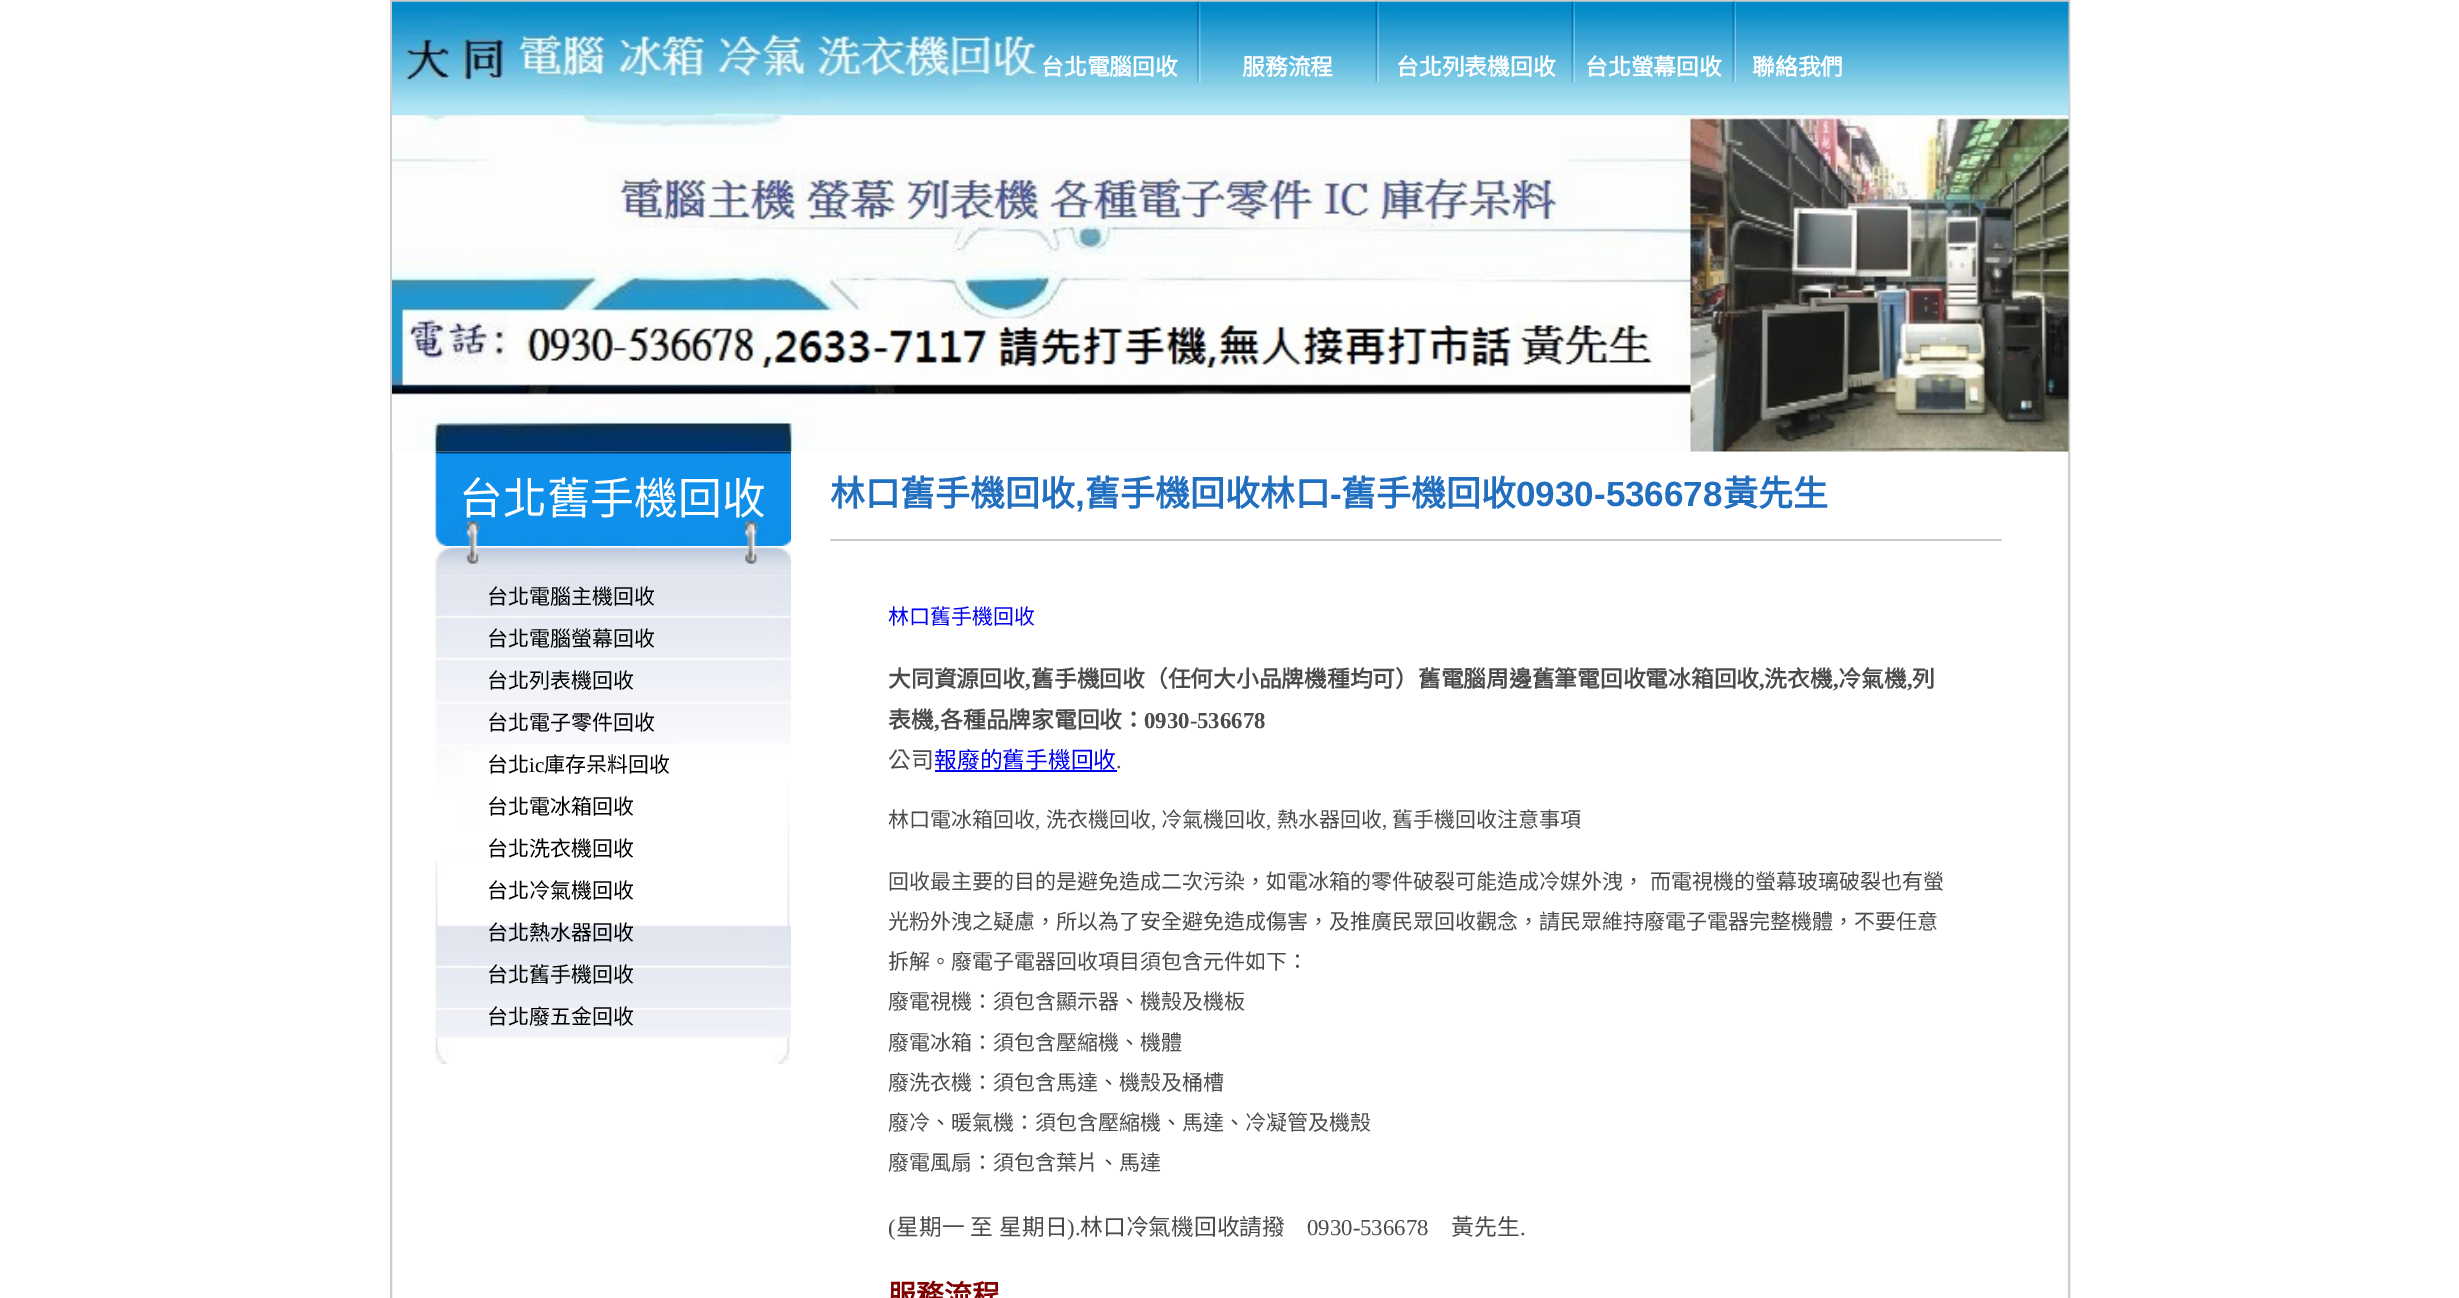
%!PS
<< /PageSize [2459 1298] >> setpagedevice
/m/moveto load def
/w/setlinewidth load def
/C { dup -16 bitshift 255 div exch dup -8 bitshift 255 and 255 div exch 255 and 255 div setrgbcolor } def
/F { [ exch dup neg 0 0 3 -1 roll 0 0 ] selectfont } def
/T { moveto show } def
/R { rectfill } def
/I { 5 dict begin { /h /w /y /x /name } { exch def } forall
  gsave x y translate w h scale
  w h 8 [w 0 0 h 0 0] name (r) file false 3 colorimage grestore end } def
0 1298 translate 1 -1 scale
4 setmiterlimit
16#FFFFFF C
0 0 2459 1298 R
16#CCCCCC C
2 w
391 1 1678 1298 rectstroke
(1.rgb) 392 1 1677 115 I
/NotoSansCJKTC-Bold 22.75 F
16#FFFFFF C
(台北電腦回收) 1041 75 T
(2.rgb) 1197 1 4 82 I
(服務流程) 1242 75 T
(3.rgb) 1375 1 4 82 I
(台北列表機回收) 1396 75 T
(3.rgb) 1571 1 4 82 I
(台北螢幕回收) 1585 75 T
(3.rgb) 1732 1 4 82 I
(聯絡我們) 1752 75 T
(4.rgb) 392 115 1677 337 I
(5.rgb) 434 451 357 95 I
/NotoSansCJKTC-Regular 43.75 F
(台北舊手機回收) 459 514 T
(7.rgb) 434 575 357 463 I
(6.rgb) 435 546 356 30 I
/NotoSansCJKTC-Regular 21 F
16#000000 C
(台北電腦主機回收) 487 604 T
(台北電腦螢幕回收) 487 646 T
(台北列表機回收) 487 688 T
(台北電子零件回收) 487 730 T
(台北) 487 772 T
/LiberationSerif-Regular 21 F
(ic) 529 772 T
/NotoSansCJKTC-Regular 21 F
(庫存呆料回收) 544 772 T
(台北電冰箱回收) 487 814 T
(台北洗衣機回收) 487 856 T
(台北冷氣機回收) 487 898 T
(台北熱水器回收) 487 940 T
(台北舊手機回收) 487 982 T
(台北廢五金回收) 487 1024 T
(8.rgb) 434 1037 356 27 I
16#CCCCCC C
830 539 1172 2 R
/NotoSansCJKTC-Bold 35 F
16#226EBF C
(林口舊手機回收) 830 506 T
(舊手機回收林口) 1085 506 T
/LiberationSans-Bold 35 F
(-) 1330 506 T
/NotoSansCJKTC-Bold 35 F
(舊手機回收) 1341 506 T
/LiberationSans-Bold 35 F
(0930-536678) 1516 506 T
/NotoSansCJKTC-Bold 35 F
(黃先生) 1723 506 T
/LiberationSans-Bold 35 F
(,) 1075 506 T
/NotoSansCJKTC-Regular 21 F
16#0000EE C
(林口舊手機回收) 888 624 T
/NotoSansCJKTC-Bold 22.75 F
16#4B4B4B C
(大同資源回收) 888 687 T
/LiberationSerif-Bold 22.75 F
(,) 1025 687 T
/NotoSansCJKTC-Bold 22.75 F
(舊手機回收（任何大小品牌機種均可）舊電腦周邊舊筆電回收電冰箱回收) 1031 687 T
/LiberationSerif-Bold 22.75 F
(,) 1759 687 T
/NotoSansCJKTC-Bold 22.75 F
(洗衣機) 1764 687 T
/LiberationSerif-Bold 22.75 F
(,) 1833 687 T
/NotoSansCJKTC-Bold 22.75 F
(冷氣機) 1838 687 T
/LiberationSerif-Bold 22.75 F
(,) 1907 687 T
/NotoSansCJKTC-Bold 22.75 F
(列) 1912 687 T
(表機) 888 728 T
/LiberationSerif-Bold 22.75 F
(,) 934 728 T
/NotoSansCJKTC-Bold 22.75 F
(各種品牌家電回收：) 940 728 T
/LiberationSerif-Bold 22.75 F
(0930-536678) 1144 728 T
/NotoSansCJKTC-Regular 22.75 F
(公司) 888 768 T
16#0000EE C
(報廢的舊手機回收) 934 768 T
/LiberationSerif-Regular 22.75 F
16#4B4B4B C
(.) 1116 768 T
16#0000EE C
935 770 182 2 R
/NotoSansCJKTC-Regular 21 F
16#4B4B4B C
(林口電冰箱回收) 888 827 T
/LiberationSerif-Regular 21 F
(,) 1035 827 T
/NotoSansCJKTC-Regular 21 F
(洗衣機回收) 1046 827 T
/LiberationSerif-Regular 21 F
(,) 1151 827 T
/NotoSansCJKTC-Regular 21 F
(冷氣機回收) 1161 827 T
/LiberationSerif-Regular 21 F
(,) 1266 827 T
/NotoSansCJKTC-Regular 21 F
(熱水器回收) 1277 827 T
/LiberationSerif-Regular 21 F
(,) 1382 827 T
/NotoSansCJKTC-Regular 21 F
(舊手機回收注意事項) 1392 827 T
(回收最主要的目的是避免造成二次污染，如電冰箱的零件破裂可能造成冷媒外洩，) 888 889 T
(而電視機的螢幕玻璃破裂也有螢) 1650 889 T
(光粉外洩之疑慮，所以為了安全避免造成傷害，及推廣民眾回收觀念，請民眾維持廢電子電器完整機體，不要任意) 888 929 T
(拆解。廢電子電器回收項目須包含元件如下：) 888 969 T
(廢電視機：須包含顯示器、機殼及機板) 888 1009 T
(廢電冰箱：須包含壓縮機、機體) 888 1050 T
(廢洗衣機：須包含馬達、機殼及桶槽) 888 1090 T
(廢冷、暖氣機：須包含壓縮機、馬達、冷凝管及機殼) 888 1130 T
(廢電風扇：須包含葉片、馬達) 888 1170 T
/LiberationSerif-Regular 22.75 F
(\() 888 1235 T
/NotoSansCJKTC-Regular 22.75 F
896 1235 m 1 0 32 (星期一 至 星期日) widthshow
/LiberationSerif-Regular 22.75 F
(\).) 1067 1235 T
/NotoSansCJKTC-Regular 22.75 F
(林口冷氣機回收請撥) 1080 1235 T
/LiberationSerif-Regular 22.75 F
(0930-536678) 1307 1235 T
/NotoSansCJKTC-Regular 22.75 F
(黃先生) 1451 1235 T
/LiberationSerif-Regular 22.75 F
(.) 1520 1235 T
/NotoSansCJKTC-Bold 28 F
16#800000 C
(服務流程) 888 1305 T
showpage
